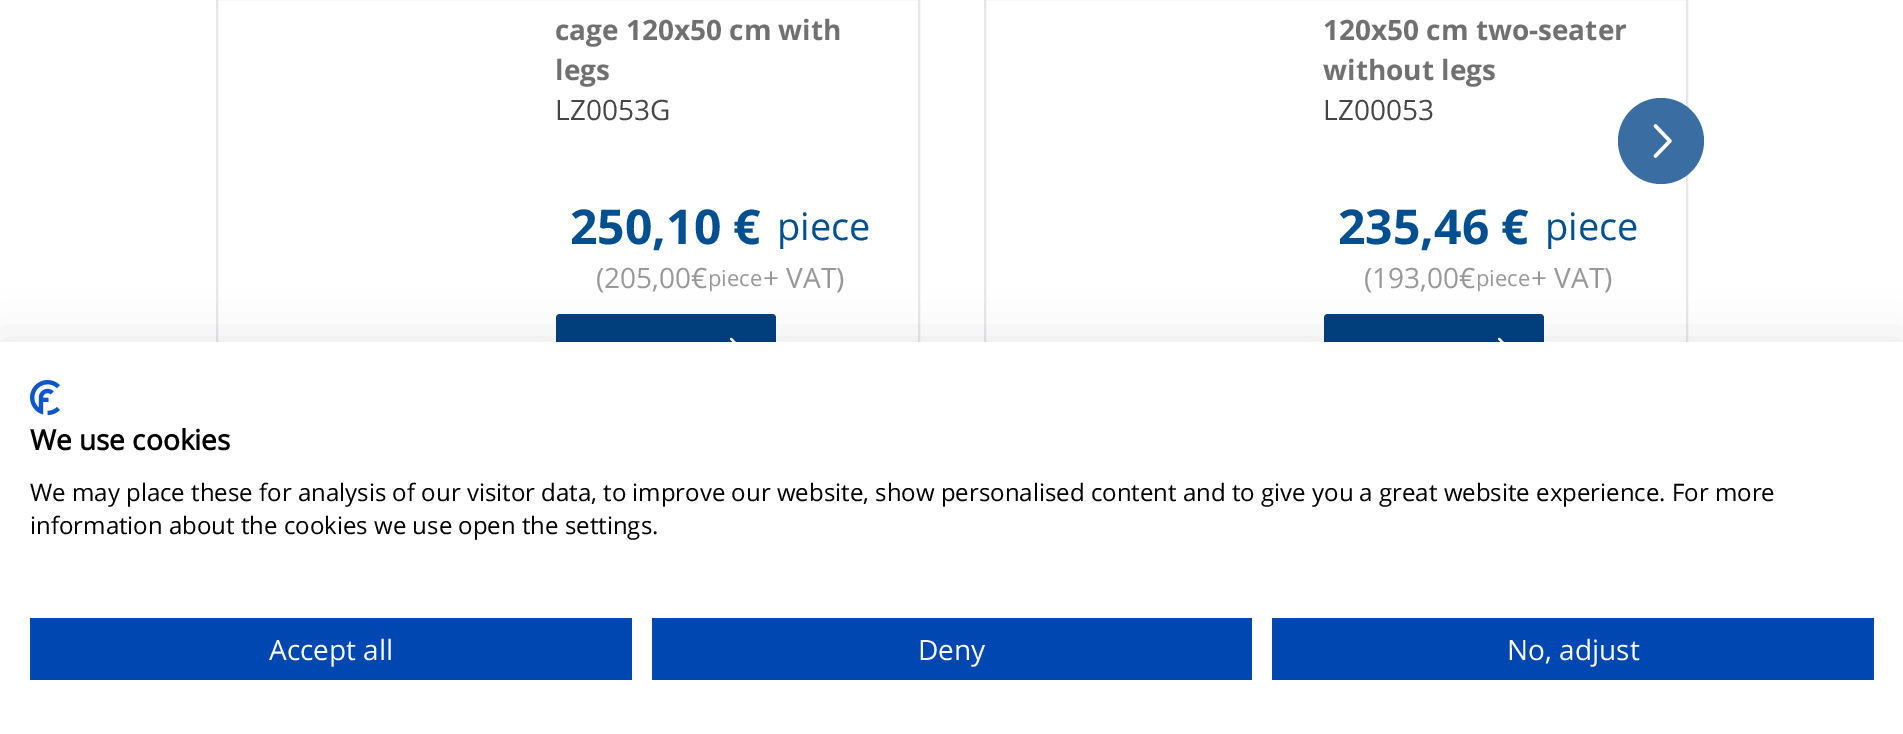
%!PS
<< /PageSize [1903 734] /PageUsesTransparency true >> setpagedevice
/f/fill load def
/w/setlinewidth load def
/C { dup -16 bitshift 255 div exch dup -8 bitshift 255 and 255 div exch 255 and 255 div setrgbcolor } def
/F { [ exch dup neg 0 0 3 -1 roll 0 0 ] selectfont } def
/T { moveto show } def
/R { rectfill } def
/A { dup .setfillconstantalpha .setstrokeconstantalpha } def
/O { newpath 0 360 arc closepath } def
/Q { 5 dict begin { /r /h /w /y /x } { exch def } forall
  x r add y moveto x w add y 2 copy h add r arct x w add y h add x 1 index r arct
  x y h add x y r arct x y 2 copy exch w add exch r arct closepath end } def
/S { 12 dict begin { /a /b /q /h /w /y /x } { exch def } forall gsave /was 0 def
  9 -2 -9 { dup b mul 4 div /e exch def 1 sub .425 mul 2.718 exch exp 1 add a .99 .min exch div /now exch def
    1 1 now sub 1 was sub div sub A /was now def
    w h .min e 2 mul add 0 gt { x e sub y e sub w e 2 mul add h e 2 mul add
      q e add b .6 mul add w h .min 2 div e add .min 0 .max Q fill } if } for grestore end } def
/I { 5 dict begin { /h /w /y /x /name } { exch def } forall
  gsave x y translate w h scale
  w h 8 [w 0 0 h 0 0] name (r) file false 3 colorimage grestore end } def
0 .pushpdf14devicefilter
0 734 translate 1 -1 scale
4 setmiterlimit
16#FFFFFF C
0 0 1903 734 R
16#E5E7EB C
2 w
217 -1 702 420 rectstroke
/OpenSans-Bold 28 F
16#707070 C
(cage 120x50 cm with) 555 40 T
(legs) 555 80 T
/OpenSans-Regular 28 F
16#464646 C
(LZ0053G) 555 120 T
/OpenSans-Bold 48 F
16#004F91 C
(250,10 €) 570 244 T
/OpenSans-Regular 38 F
(piece) 777 240 T
/OpenSans-Regular 28 F
16#989898 C
(\(205,00€) 596 288 T
/OpenSans-Regular 22 F
(piece) 708 286 T
/OpenSans-Regular 28 F
(+ VAT\)) 763 288 T
16#003F80 C
556 314 220 72 4 Q f
(1.rgb) 730 337 6 5 I
16#E5E7EB C
985 -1 702 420 rectstroke
/OpenSans-Bold 28 F
16#707070 C
(120x50 cm two-seater) 1323 40 T
(without legs) 1323 80 T
/OpenSans-Regular 28 F
16#464646 C
(LZ00053) 1323 120 T
/OpenSans-Bold 48 F
16#004F91 C
(235,46 €) 1338 244 T
/OpenSans-Regular 38 F
(piece) 1545 240 T
/OpenSans-Regular 28 F
16#989898 C
(\(193,00€) 1364 288 T
/OpenSans-Regular 22 F
(piece) 1476 286 T
/OpenSans-Regular 28 F
(+ VAT\)) 1531 288 T
16#003F80 C
1324 314 220 72 4 Q f
(1.rgb) 1498 337 6 5 I
16#3A6EA2 C
1661 141 43 O f
(2.rgb) 1653 124 19 34 I
16#000000 C
0 342 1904 392 0 24 .1 S
16#FFFFFF C
0 342 1903 392 R
(3.rgb) 30 380 30 36 I
/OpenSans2-Bold 28 F
16#000000 C
(We use cookies) 30 450 T
/OpenSans-Regular 24 F
(We may place these for analysis of our visitor data, to improve our website, show personalised content and to give you a great website experience. For more) 30 501 T
(information about the cookies we use open the settings.) 30 534 T
16#0047B2 C
30 618 602 62 R
/OpenSans-Regular 28 F
16#FFFFFF C
(Accept all) 269 660 T
16#0047B2 C
652 618 600 62 R
16#FFFFFF C
(Deny) 918 660 T
16#0047B2 C
1272 618 602 62 R
16#FFFFFF C
(No, adjust) 1507 660 T
.poppdf14devicefilter showpage
